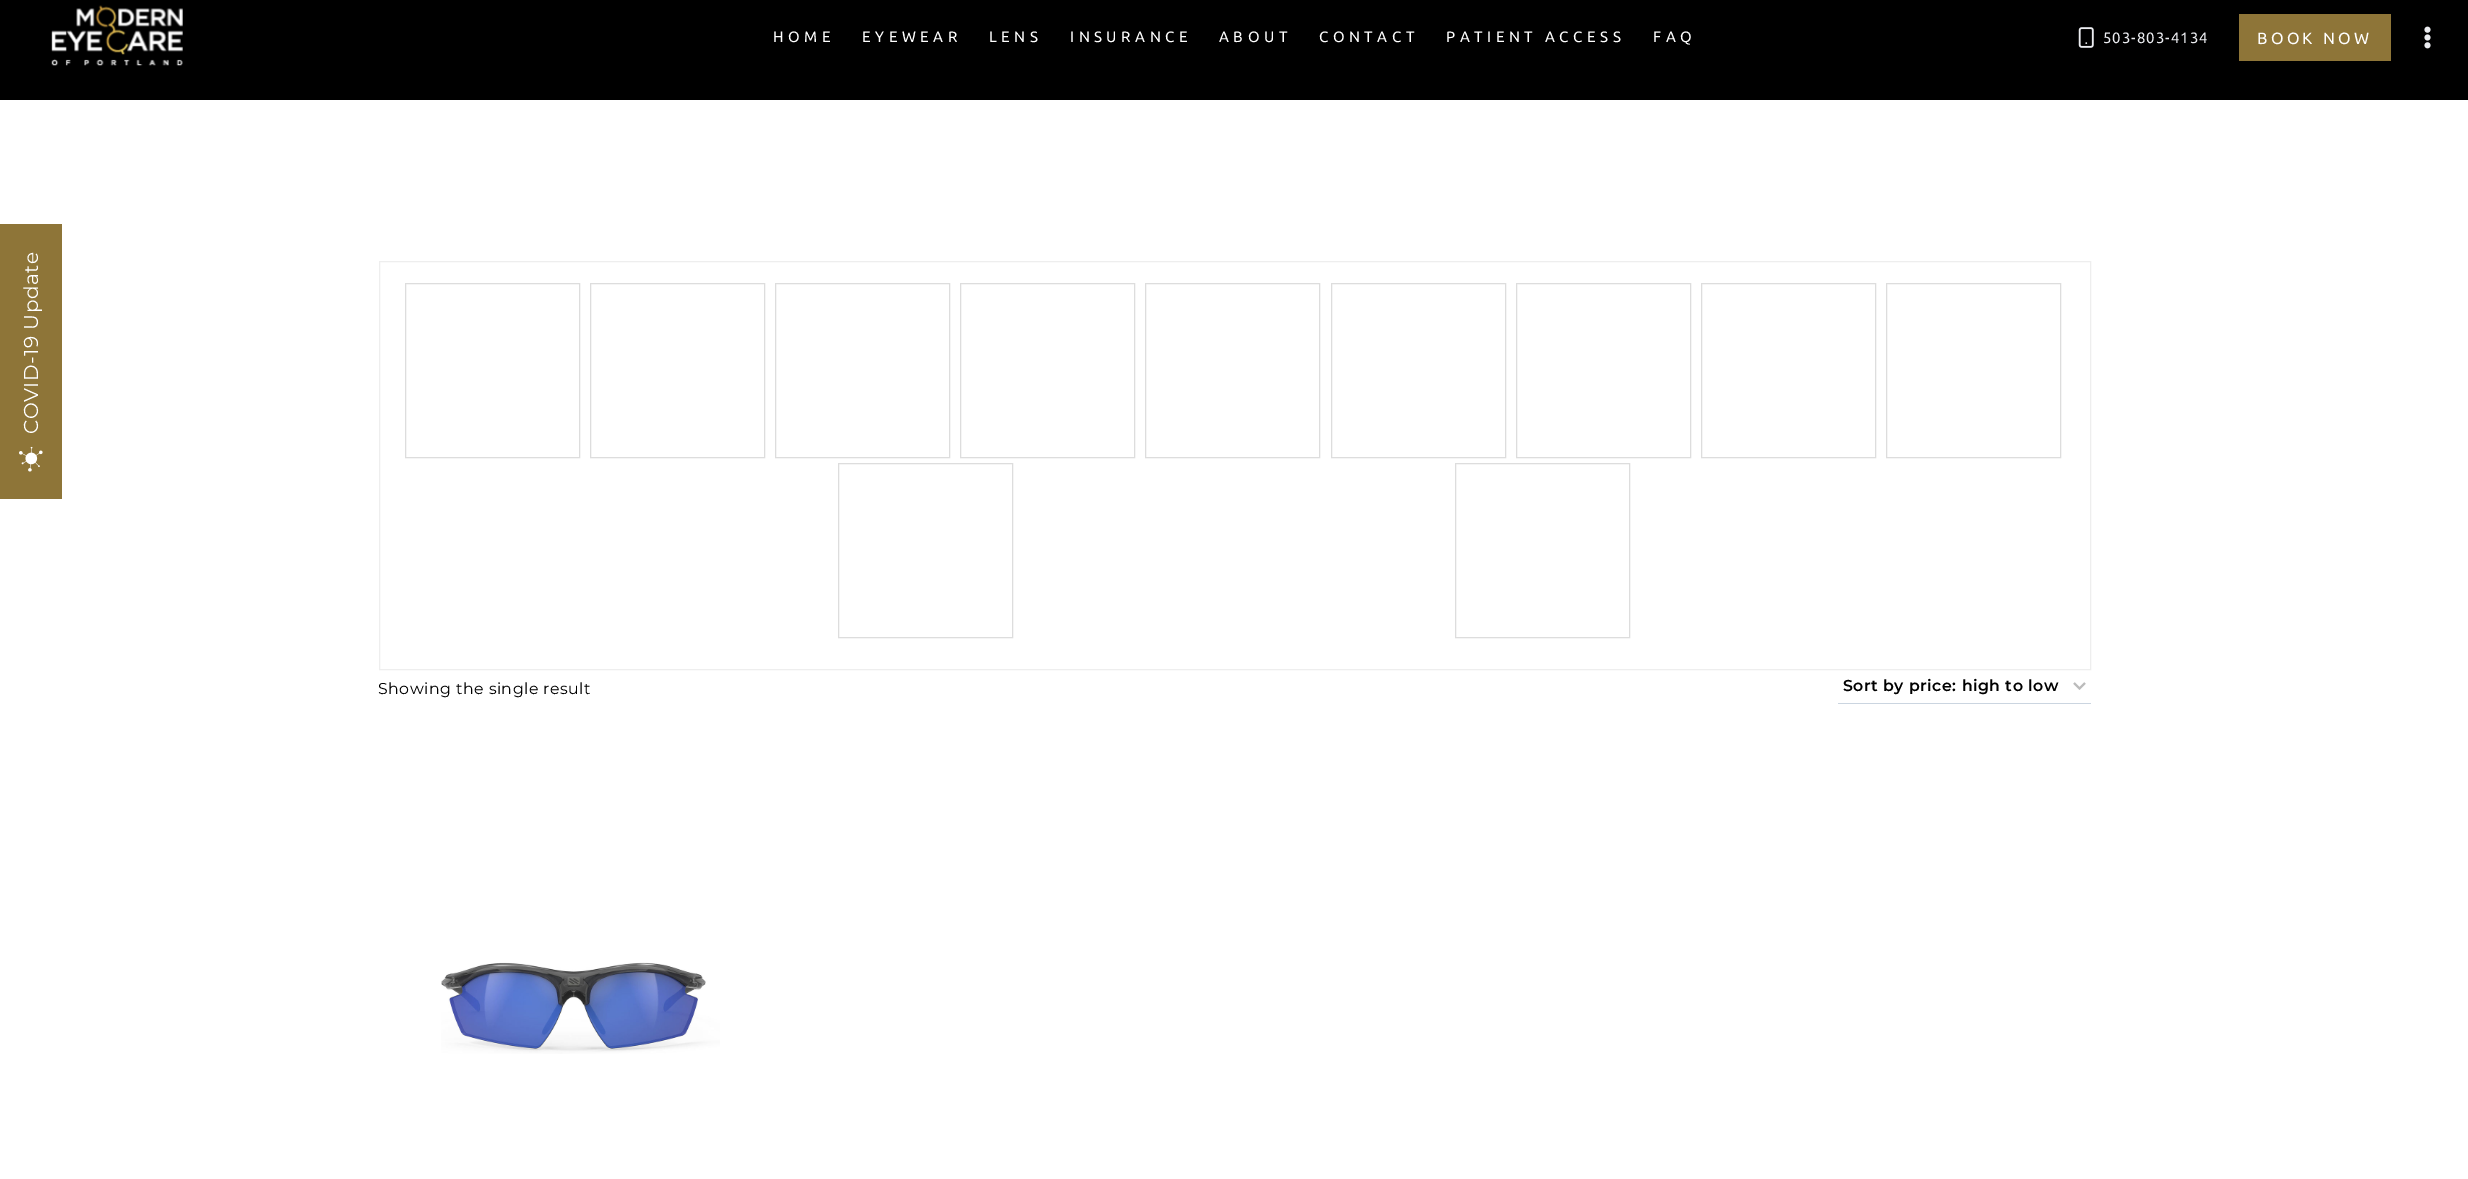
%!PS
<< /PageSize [2468 1179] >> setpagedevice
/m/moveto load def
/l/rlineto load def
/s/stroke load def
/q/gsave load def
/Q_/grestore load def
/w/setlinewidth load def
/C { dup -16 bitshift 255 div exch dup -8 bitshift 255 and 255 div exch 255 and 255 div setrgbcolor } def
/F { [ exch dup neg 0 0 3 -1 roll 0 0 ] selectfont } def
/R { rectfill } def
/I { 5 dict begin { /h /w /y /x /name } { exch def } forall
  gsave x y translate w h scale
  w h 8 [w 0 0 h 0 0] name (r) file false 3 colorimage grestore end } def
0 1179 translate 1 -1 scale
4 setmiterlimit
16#FFFFFF C
0 0 2468 1179 R
16#8E7538 C
0 224 62 275 R
/Montserrat-Regular 20 F
16#FFFFFF C
q 38 434 translate -90 rotate 0 0 m .5 0 (COVID-19 Update) ashow Q_
(1.rgb) 19 446 24 26 I
16#000000 C
0 0 2468 100 R
(2.rgb) 51 5 132 61 I
/Ubuntu-Regular 15 F
16#FFFFFF C
773 42 m 4.5 0 (HOME) ashow
862 42 m 4.5 0 (EYEWEAR) ashow
989 42 m 4.5 0 (LENS) ashow
1070 42 m 4.5 0 (INSURANCE) ashow
1219 42 m 4.5 0 (ABOUT) ashow
1319 42 m 4.5 0 (CONTACT) ashow
1446 42 m 4.5 0 (PATIENT ACCESS) ashow
1653 42 m 4.5 0 (FAQ) ashow
(3.rgb) 2078 27 16 21 I
16#EBECF0 C
2103 43 m 1 0 (503-803-4134) ashow
16#8E7538 C
2239 14 152 47 R
/Ubuntu-Regular 16.25 F
16#FFFFFF C
2257 44 m 3.25 0 (BOOK NOW) ashow
(4.rgb) 2424 26 7 23 I
16#EEEEEE C
379.5 261.5 1711 408 rectstroke
16#DDDDDD C
405.5 283.5 174 174 rectstroke
590.5 283.5 174 174 rectstroke
775.5 283.5 174 174 rectstroke
960.5 283.5 174 174 rectstroke
1145.5 283.5 174 174 rectstroke
1331.5 283.5 174 174 rectstroke
1516.5 283.5 174 174 rectstroke
1701.5 283.5 174 174 rectstroke
1886.5 283.5 174 174 rectstroke
838.5 463.5 174 174 rectstroke
1455.5 463.5 174 174 rectstroke
/Montserrat-Regular 15.75 F
16#000000 C
378 694 m .5 0 (Showing the single result) ashow
16#BBBBBB C
1.8 w
2074 683 m 5.5 5.5 l 5.5 -5.5 l s
16#CBD5E0 C
1838 703 253 1 R
/Montserrat-SemiBold 15.75 F
16#000000 C
1843 691 m .5 0 (Sort by price: high to low) ashow
(5.rgb) 441 962 279 92 I
showpage
